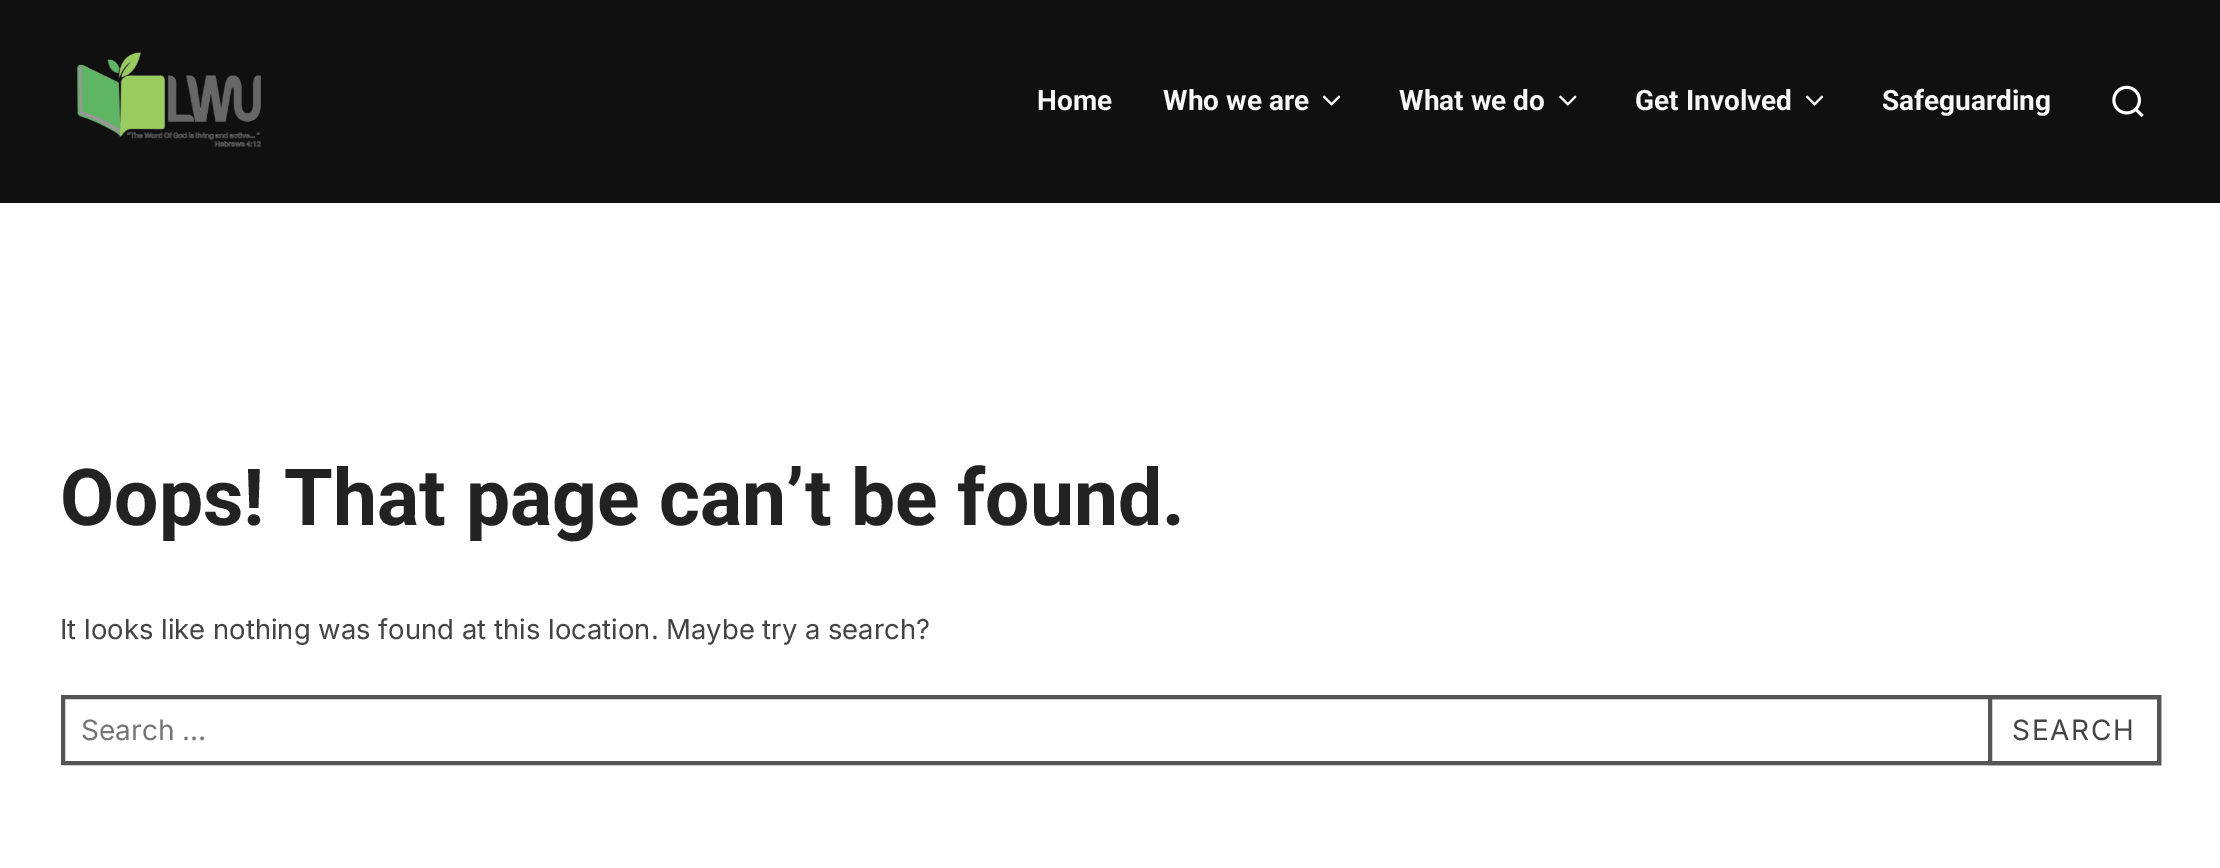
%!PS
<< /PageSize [2220 868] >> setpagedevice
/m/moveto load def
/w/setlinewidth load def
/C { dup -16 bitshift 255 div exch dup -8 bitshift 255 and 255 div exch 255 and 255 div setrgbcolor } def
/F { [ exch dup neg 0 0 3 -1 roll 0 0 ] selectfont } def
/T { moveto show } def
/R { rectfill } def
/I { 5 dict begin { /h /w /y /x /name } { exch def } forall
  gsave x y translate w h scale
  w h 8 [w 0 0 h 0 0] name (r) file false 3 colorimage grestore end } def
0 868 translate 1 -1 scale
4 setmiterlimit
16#FFFFFF C
0 0 2220 868 R
16#101010 C
0 0 2220 203 R
(1.rgb) 77 52 184 95 I
/Roboto-Bold 28 F
16#F7F7F7 C
(Home) 1037 110 T
(Who we are) 1163 110 T
(2.rgb) 1322 95 19 11 I
(What we do) 1399 110 T
(3.rgb) 1559 95 18 11 I
(Get Involved) 1635 110 T
(2.rgb) 1805 95 19 11 I
(Safeguarding) 1882 110 T
(4.rgb) 2112 85 32 33 I
/Roboto-Bold 78.75 F
16#222222 C
(Oops! That page can’t be found.) 60 525 T
/Inter-Regular 27.45 F
16#444444 C
(It looks like nothing was found at this location. Maybe try a search?) 60 639 T
16#565555 C
4 w
63 697 2096 66 rectstroke
/Inter-Regular 28 F
16#757575 C
(Search …) 81 740 T
16#565555 C
1990 697 169 66 rectstroke
16#444444 C
2012 740 m 1.75 0 (SEARCH) ashow
showpage
